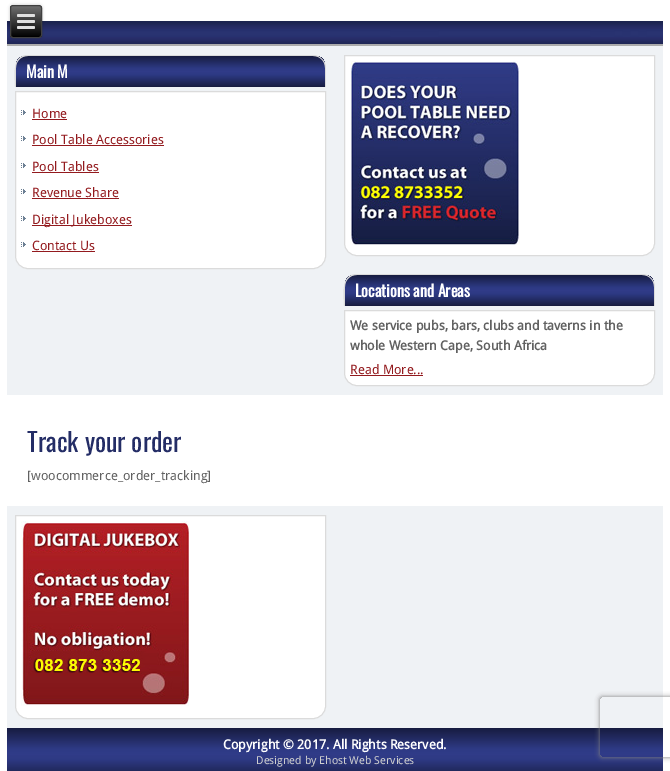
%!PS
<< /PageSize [670 771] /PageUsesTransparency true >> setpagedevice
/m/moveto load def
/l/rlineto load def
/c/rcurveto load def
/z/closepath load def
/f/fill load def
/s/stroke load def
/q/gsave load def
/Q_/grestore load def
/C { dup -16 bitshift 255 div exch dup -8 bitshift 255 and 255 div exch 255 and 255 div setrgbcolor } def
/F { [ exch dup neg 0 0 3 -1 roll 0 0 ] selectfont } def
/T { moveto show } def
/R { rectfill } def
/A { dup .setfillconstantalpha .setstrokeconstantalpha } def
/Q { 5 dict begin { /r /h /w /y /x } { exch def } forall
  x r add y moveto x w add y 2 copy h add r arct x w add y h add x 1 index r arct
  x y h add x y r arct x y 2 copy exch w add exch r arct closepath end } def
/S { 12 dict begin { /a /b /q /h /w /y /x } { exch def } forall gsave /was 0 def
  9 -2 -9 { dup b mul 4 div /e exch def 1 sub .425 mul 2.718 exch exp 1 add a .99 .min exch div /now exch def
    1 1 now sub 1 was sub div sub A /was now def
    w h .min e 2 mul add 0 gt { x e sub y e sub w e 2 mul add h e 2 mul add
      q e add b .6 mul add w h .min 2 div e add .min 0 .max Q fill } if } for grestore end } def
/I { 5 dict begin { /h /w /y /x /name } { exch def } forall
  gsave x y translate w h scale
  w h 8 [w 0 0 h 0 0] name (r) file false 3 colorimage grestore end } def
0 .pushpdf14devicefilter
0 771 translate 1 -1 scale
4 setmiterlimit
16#FFFFFF C
0 0 670 771 R
(1.rgb) 7 21 656 23 I
16#ABABAB C
7 44 656 2 R
16#000000 C
10 5 32 33 3 1.5 .2 S
q
10 5 32 33 3 Q clip newpath
q 10 6 m 32 0 l 0 31 l -32 0 l z clip newpath
<< /ShadingType 2 /ColorSpace /DeviceRGB /Coords [26 6 26 37] /Extend [true true] /Function << /FunctionType 2 /Domain [0 1] /C0 [.439 .439 .439] /C1 [0 0 0] /N 1 >> >> shfill Q_
Q_
16#404040 C
10.5 5.5 31 32 2.5 Q s
16#E0E0E0 C
17 14 18 3 1.5 Q f
17 20 18 3 1.5 Q f
17 26 18 3 1.5 Q f
16#EFF2F5 C
7 46 656 349 R
q
28 55 m 285 0 l 7 0 13 6 13 13 c 0 19 l -311 0 l 0 -19 l 0 -7 6 -13 13 -13 c z clip newpath
q 16 56 m 309 0 l 0 31 l -309 0 l z clip newpath
<< /ShadingType 2 /ColorSpace /DeviceRGB /Coords [171 56 171 87] /Extend [true true] /Function << /FunctionType 3 /Domain [0 1] /Functions [<< /FunctionType 2 /Domain [0 1] /C0 [.09 .11 .251] /C1 [.18 .227 .518] /N 1 >> << /FunctionType 2 /Domain [0 1] /C0 [.18 .227 .518] /C1 [.188 .231 .533] /N 1 >> << /FunctionType 2 /Domain [0 1] /C0 [.188 .231 .533] /C1 [.18 .227 .518] /N 1 >> << /FunctionType 2 /Domain [0 1] /C0 [.18 .227 .518] /C1 [.09 .11 .251] /N 1 >>] /Bounds [.4 .5 .6] /Encode [0 1 0 1 0 1 0 1] >> >> shfill Q_
Q_
16#DBDBDB C
28 55 m 285 0 l 7 0 13 6 13 13 c 0 19 l -311 0 l 0 -11 -4 -32 13 -32 c z 28 56 m 285 0 l 7 0 12 5 12 12 c 0 19 l -309 0 l 0 -19 l 0 -7 5 -12 12 -12 c z eofill
/Oswald-Bold 16 F
16#FFFFFF C
(Main M) 26 78 T
15.5 91.5 m 310 0 l 0 164.5 l 0 7 -5.5 12.5 -12.5 12.5 c -285 0 l -7 0 -12.5 -5.5 -12.5 -12.5 c z q f Q_
16#DBDBDB C
s
(2.rgb) 21 110 5 5 I
/DroidSans-Regular 13 F
16#931A1E C
(Home) 32 118 T
32 119 35 1 R
(2.rgb) 21 136 5 5 I
(Pool Table Accessories) 32 144 T
32 145 132 1 R
(2.rgb) 21 163 5 5 I
(Pool Tables) 32 171 T
32 172 67 1 R
(2.rgb) 21 189 5 5 I
(Revenue Share) 32 197 T
32 198 87 1 R
(2.rgb) 21 216 5 5 I
32 225 100 1 R
(Digital Jukeboxes) 32 224 T
(2.rgb) 21 242 5 5 I
(Contact Us) 32 250 T
32 251 63 1 R
16#FFFFFF C
344.5 55.5 m 310 0 l 0 187.5 l 0 7 -5.5 12.5 -12.5 12.5 c -285 0 l -7 0 -12.5 -5.5 -12.5 -12.5 c z q f Q_
16#DBDBDB C
s
(3.rgb) 350 61 170 184 I
q
357 274 m 285 0 l 7 0 13 6 13 13 c 0 19 l -311 0 l 0 -19 l 0 -7 6 -13 13 -13 c z clip newpath
q 345 275 m 309 0 l 0 31 l -309 0 l z clip newpath
<< /ShadingType 2 /ColorSpace /DeviceRGB /Coords [500 275 500 306] /Extend [true true] /Function << /FunctionType 3 /Domain [0 1] /Functions [<< /FunctionType 2 /Domain [0 1] /C0 [.09 .11 .251] /C1 [.18 .227 .518] /N 1 >> << /FunctionType 2 /Domain [0 1] /C0 [.18 .227 .518] /C1 [.188 .231 .533] /N 1 >> << /FunctionType 2 /Domain [0 1] /C0 [.188 .231 .533] /C1 [.18 .227 .518] /N 1 >> << /FunctionType 2 /Domain [0 1] /C0 [.18 .227 .518] /C1 [.09 .11 .251] /N 1 >>] /Bounds [.4 .5 .6] /Encode [0 1 0 1 0 1 0 1] >> >> shfill Q_
Q_
357 274 m 285 0 l 7 0 13 6 13 13 c 0 19 l -311 0 l 0 -11 -4 -32 13 -32 c z 357 275 m 285 0 l 7 0 12 5 12 12 c 0 19 l -309 0 l 0 -19 l 0 -7 5 -12 12 -12 c z eofill
/Oswald-Bold 16 F
16#FFFFFF C
(Locations and Areas) 355 297 T
344.5 310.5 m 310 0 l 0 62.5 l 0 7 -5.5 12.5 -12.5 12.5 c -285 0 l -7 0 -12.5 -5.5 -12.5 -12.5 c z q f Q_
16#DBDBDB C
s
/DroidSans-Bold 13 F
16#616161 C
(We service pubs, bars, clubs and taverns in the) 350 330 T
(whole Western Cape, South Africa) 350 350 T
/DroidSans-Regular 13 F
16#931A1E C
(Read More...) 350 374 T
350 375 73 1 R
/Oswald-Regular 26 F
16#242D66 C
(Track your order) 27 452 T
/DroidSans-Regular 13 F
16#616161 C
([woocommerce_order_tracking]) 27 480 T
16#EFF2F5 C
7 506 656 222 R
16#FFFFFF C
15.5 515.5 m 310 0 l 0 190.5 l 0 7 -5.5 12.5 -12.5 12.5 c -285 0 l -7 0 -12.5 -5.5 -12.5 -12.5 c z q f Q_
16#DBDBDB C
s
(4.rgb) 21 521 168 185 I
q 7 728 m 656 0 l 0 37 l 0 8.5 -6.5 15 -15 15 c -626 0 l -8.5 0 -15 -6.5 -15 -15 c z clip newpath
<< /ShadingType 2 /ColorSpace /DeviceRGB /Coords [335 728 335 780] /Extend [true true] /Function << /FunctionType 3 /Domain [0 1] /Functions [<< /FunctionType 2 /Domain [0 1] /C0 [.09 .11 .251] /C1 [.18 .227 .518] /N 1 >> << /FunctionType 2 /Domain [0 1] /C0 [.18 .227 .518] /C1 [.188 .231 .533] /N 1 >> << /FunctionType 2 /Domain [0 1] /C0 [.188 .231 .533] /C1 [.18 .227 .518] /N 1 >> << /FunctionType 2 /Domain [0 1] /C0 [.18 .227 .518] /C1 [.09 .11 .251] /N 1 >>] /Bounds [.4 .5 .6] /Encode [0 1 0 1 0 1 0 1] >> >> shfill Q_
/DroidSans-Bold 13 F
16#FFFFFF C
(Copyright © 2017. All Rights Reserved.) 223 749 T
/DroidSans-Regular 11 F
16#CFCFCF C
(Designed by Ehost Web Services) 256 764 T
q
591 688 m 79 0 l 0 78 l -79 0 l z 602 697 m 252 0 l 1 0 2 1 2 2 c 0 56 l 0 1 -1 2 -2 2 c -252 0 l -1 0 -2 -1 -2 -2 c 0 -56 l 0 -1 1 -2 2 -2 c z eoclip newpath
16#808080 C
600 697 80 60 2 2.5 1 S
Q_
.poppdf14devicefilter showpage
